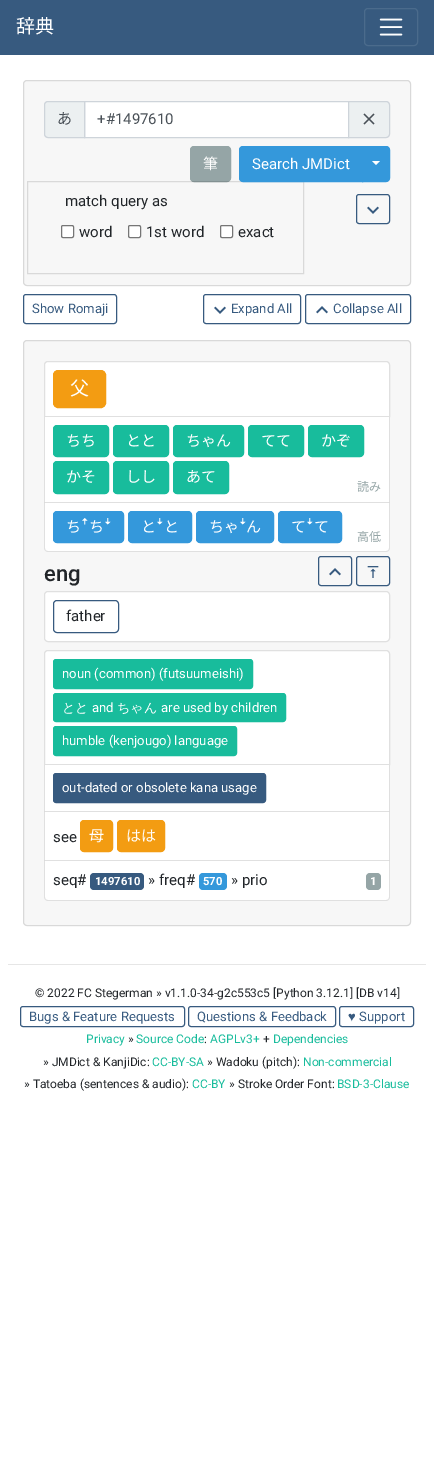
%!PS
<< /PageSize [434 1458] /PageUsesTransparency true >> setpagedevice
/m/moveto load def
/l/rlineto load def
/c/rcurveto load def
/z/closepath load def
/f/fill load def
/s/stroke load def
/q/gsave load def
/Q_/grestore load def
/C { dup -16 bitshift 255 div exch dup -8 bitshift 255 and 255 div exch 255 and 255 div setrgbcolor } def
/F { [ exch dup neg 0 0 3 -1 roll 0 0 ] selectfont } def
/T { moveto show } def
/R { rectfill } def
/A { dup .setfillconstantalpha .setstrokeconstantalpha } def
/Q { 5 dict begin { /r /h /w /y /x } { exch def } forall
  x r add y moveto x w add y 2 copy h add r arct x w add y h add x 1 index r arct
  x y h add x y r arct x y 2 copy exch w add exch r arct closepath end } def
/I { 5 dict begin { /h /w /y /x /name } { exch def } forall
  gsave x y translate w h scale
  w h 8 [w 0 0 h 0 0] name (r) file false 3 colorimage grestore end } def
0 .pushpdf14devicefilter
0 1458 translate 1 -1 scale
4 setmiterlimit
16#FFFFFF C
0 0 434 1458 R
16#375A7F C
0 0 434 55 R
/NotoSansCJKJP-Regular 19 F
16#FFFFFF C
(辞典) 16 33 T
16#4B6B8C C
364.5 8.5 53 37 3.5 Q s
(1.rgb) 379 18 24 18 I
16#F7F7F7 C
23 80 388 206 4 Q f
0.12 A
16#000000 C
23.5 80.5 387 205 3.5 Q s
1 A
16#FFFFFF C
84.5 101.5 m 264 0 l 0 36 l -264 0 l z q f Q_
16#CED4DA C
s
16#ECF0F1 C
48 101.5 m 36.5 0 l 0 36 l -36.5 0 l -2 0 -3.5 -1.5 -3.5 -3.5 c 0 -29 l 0 -2 1.5 -3.5 3.5 -3.5 c z q f Q_
16#CED4DA C
s
/NotoSansCJKJP-Regular 15 F
16#495057 C
(あ) 57 124 T
/Roboto-Regular 15 F
(+#1497610) 97 124 T
16#ECF0F1 C
348.5 101.5 m 37.5 0 l 2 0 3.5 1.5 3.5 3.5 c 0 29 l 0 2 -1.5 3.5 -3.5 3.5 c -37.5 0 l z q f Q_
16#CED4DA C
s
(2.rgb) 363 113 12 12 I
16#95A5A6 C
190.5 146.5 40 35 3.5 Q q f Q_
s
/NotoSansCJKJP-Regular 15 F
16#FFFFFF C
(筆) 203 169 T
0.12 A
16#000000 C
27.5 181.5 276 92 rectstroke
1 A
16#3498DB C
243 146.5 m 119.5 0 l 0 35 l -119.5 0 l -2 0 -3.5 -1.5 -3.5 -3.5 c 0 -28 l 0 -2 1.5 -3.5 3.5 -3.5 c z q f Q_
s
/Roboto-Regular 15 F
16#FFFFFF C
(Search JMDict) 252 169 T
16#3498DB C
362.5 146.5 m 23.5 0 l 2 0 3.5 1.5 3.5 3.5 c 0 28 l 0 2 -1.5 3.5 -3.5 3.5 c -23.5 0 l z q f Q_
s
16#FFFFFF C
372 161 m 8 0 l -4 4 l z f
16#212529 C
(match query as) 65 206 T
16#FFFFFF C
61.5 225.5 12 12 1.5 Q q f Q_
16#767676 C
s
16#212529 C
(word) 79 237 T
16#FFFFFF C
128.5 225.5 12 12 1.5 Q q f Q_
16#767676 C
s
16#212529 C
(1st word) 146 237 T
16#FFFFFF C
220.5 225.5 12 12 1.5 Q q f Q_
16#767676 C
s
16#212529 C
(exact) 238 237 T
16#375A7F C
356.5 194.5 33 29 2.5 Q s
(3.rgb) 367 206 12 8 I
23.5 294.5 93 29 2.5 Q s
/Roboto-Regular 13.1 F
(Show Romaji) 32 313 T
203.5 294.5 97 29 2.5 Q s
(4.rgb) 214 306 12 8 I
(Expand All) 231 313 T
305.5 294.5 105 29 2.5 Q s
(5.rgb) 316 306 12 8 I
(Collapse All) 333 313 T
16#F7F7F7 C
23 340 388 586 4 Q f
0.12 A
16#000000 C
23.5 340.5 387 585 3.5 Q s
1 A
16#FFFFFF C
48 361 m 338 0 l 2 0 4 2 4 4 c 0 52 l -346 0 l 0 -52 l 0 -2 2 -4 4 -4 c z f
0.12 A
16#000000 C
48 361.5 m 338 0 l 2 0 3.5 1.5 3.5 3.5 c 0 51.5 l -345 0 l 0 -51.5 l 0 -2 1.5 -3.5 3.5 -3.5 c z s
1 A
16#F39C12 C
53.5 370.5 52 37 4.5 Q q f Q_
s
/NotoSansCJKJP-Regular 19 F
16#FFFFFF C
(父) 70 395 T
44 417 346 86 R
16#DFDFDF C
390 417 m 0 86 l -1 -1 l 0 -85 l z f
0.12 A
16#000000 C
390 503 m -346 0 l 1 -1 l 344 0 l z f
44 503 m 0 -86 l 1 0 l 0 85 l z f
1 A
16#18BC9C C
53.5 425.5 55 31 3.5 Q q f Q_
s
/NotoSansCJKJP-Regular 15 F
16#FFFFFF C
(ちち) 66 446 T
16#18BC9C C
113.5 425.5 55 31 3.5 Q q f Q_
s
16#FFFFFF C
(とと) 126 446 T
16#18BC9C C
173.5 425.5 70 31 3.5 Q q f Q_
s
16#FFFFFF C
(ちゃん) 186 446 T
16#18BC9C C
248.5 425.5 55 31 3.5 Q q f Q_
s
16#FFFFFF C
(てて) 261 446 T
16#18BC9C C
308.5 425.5 55 31 3.5 Q q f Q_
s
16#FFFFFF C
(かぞ) 321 446 T
16#18BC9C C
53.5 461.5 55 32 3.5 Q q f Q_
s
16#FFFFFF C
(かそ) 66 482 T
16#18BC9C C
113.5 461.5 55 32 3.5 Q q f Q_
s
16#FFFFFF C
(しし) 126 482 T
16#18BC9C C
173.5 461.5 55 32 3.5 Q q f Q_
s
16#FFFFFF C
(あて) 186 482 T
/NotoSansCJKJP-Regular 12 F
16#95A5A6 C
(読み) 357 491 T
16#FFFFFF C
44 503 m 346 0 l 0 45 l 0 2 -2 4 -4 4 c -338 0 l -2 0 -4 -2 -4 -4 c z f
0.12 A
16#000000 C
44 503 m 346 0 l 0 45 l 0 2 -2 4 -4 4 c -338 0 l -2 0 -4 -2 -4 -4 c z 45 503 m 344 0 l 0 45 l 0 2 -1 3 -3 3 c -338 0 l -2 0 -3 -1 -3 -3 c z eofill
1 A
16#3498DB C
53.5 511.5 70 31 3.5 Q q f Q_
s
/NotoSansCJKJP-Regular 15 F
16#FFFFFF C
(ち) 66 532 T
/LiberationSans-Regular 15 F
(ꜛ) 81 532 T
/NotoSansCJKJP-Regular 15 F
(ち) 89 532 T
/LiberationSans-Regular 15 F
(ꜜ) 104 532 T
16#3498DB C
128.5 511.5 63 31 3.5 Q q f Q_
s
/NotoSansCJKJP-Regular 15 F
16#FFFFFF C
(と) 141 532 T
/LiberationSans-Regular 15 F
(ꜜ) 156 532 T
/NotoSansCJKJP-Regular 15 F
(と) 164 532 T
16#3498DB C
196.5 511.5 77 31 3.5 Q q f Q_
s
16#FFFFFF C
(ちゃ) 209 532 T
/LiberationSans-Regular 15 F
(ꜜ) 239 532 T
/NotoSansCJKJP-Regular 15 F
(ん) 246 532 T
16#3498DB C
278.5 511.5 63 31 3.5 Q q f Q_
s
16#FFFFFF C
(て) 291 532 T
/LiberationSans-Regular 15 F
(ꜜ) 306 532 T
/NotoSansCJKJP-Regular 15 F
(て) 314 532 T
/NotoSansCJKJP-Regular 12 F
16#95A5A6 C
(高低) 357 541 T
16#375A7F C
318.5 556.5 33 29 2.5 Q s
(6.rgb) 329 568 12 8 I
356.5 556.5 33 29 2.5 Q s
(7.rgb) 367 566 12 12 I
/Roboto-Medium 22 F
16#212529 C
(eng) 44 581 T
16#FFFFFF C
44 591 346 51 4 Q f
0.12 A
16#000000 C
44.5 591.5 345 50 3.5 Q s
1 A
16#375A7F C
53.5 600.5 65 32 3.5 Q s
/Roboto-Regular 15 F
16#212529 C
(father) 66 621 T
16#FFFFFF C
48 650 m 338 0 l 2 0 4 2 4 4 c 0 111 l -346 0 l 0 -111 l 0 -2 2 -4 4 -4 c z f
0.12 A
16#000000 C
48 650.5 m 338 0 l 2 0 3.5 1.5 3.5 3.5 c 0 110.5 l -345 0 l 0 -110.5 l 0 -2 1.5 -3.5 3.5 -3.5 c z s
1 A
16#18BC9C C
53.5 659.5 199 29 2.5 Q q f Q_
s
/Roboto-Regular 13.1 F
16#FFFFFF C
(noun \(common\) \(futsuumeishi\)) 62 678 T
16#18BC9C C
53.5 693.5 232 28 2.5 Q q f Q_
s
/WenQuanYiZenHei-Medium 13.1 F
16#FFFFFF C
(とと) 62 712 T
/Roboto-Regular 13.1 F
(and) 92 712 T
/WenQuanYiZenHei-Medium 13.1 F
(ちゃん) 117 712 T
/Roboto-Regular 13.1 F
(are used by children) 161 712 T
16#18BC9C C
53.5 726.5 183 29 2.5 Q q f Q_
s
16#FFFFFF C
(humble \(kenjougo\) language) 62 745 T
44 765 346 96 R
16#DFDFDF C
390 765 m 0 47 l -1 -1 l 0 -46 l z f
0.12 A
16#000000 C
390 812 m -346 0 l 1 -1 l 344 0 l z f
44 812 m 0 -47 l 1 0 l 0 46 l z f
1 A
16#375A7F C
53.5 773.5 212 29 2.5 Q q f Q_
s
16#FFFFFF C
(out-dated or obsolete kana usage) 62 792 T
16#DFDFDF C
390 812 m 0 49 l -1 -1 l 0 -48 l z f
0.12 A
16#000000 C
390 861 m -346 0 l 1 -1 l 344 0 l z f
44 861 m 0 -49 l 1 0 l 0 48 l z f
/Roboto-Regular 15 F
1 A
16#212529 C
(see) 53 842 T
16#F39C12 C
80.5 820.5 32 31 3.5 Q q f Q_
s
/NotoSansCJKJP-Regular 15 F
16#FFFFFF C
(母) 89 841 T
16#F39C12 C
117.5 820.5 47 31 3.5 Q q f Q_
s
16#FFFFFF C
(はは) 126 841 T
44 861 m 346 0 l 0 36 l 0 2 -2 4 -4 4 c -338 0 l -2 0 -4 -2 -4 -4 c z f
0.12 A
16#000000 C
44 861 m 346 0 l 0 36 l 0 2 -2 4 -4 4 c -338 0 l -2 0 -4 -2 -4 -4 c z 45 861 m 344 0 l 0 36 l 0 2 -1 3 -3 3 c -338 0 l -2 0 -3 -1 -3 -3 c z eofill
/Roboto-Regular 15 F
1 A
16#212529 C
(seq#) 53 885 T
16#375A7F C
90 873 54 17 4 Q f
/Roboto-Bold 11.25 F
16#FFFFFF C
(1497610) 95 885 T
/Roboto-Regular 15 F
16#212529 C
(» freq#) 148 885 T
16#3498DB C
199 873 28 17 4 Q f
/Roboto-Bold 11.25 F
16#FFFFFF C
(570) 203 885 T
/Roboto-Regular 15 F
16#212529 C
(» prio) 231 885 T
16#95A5A6 C
366 873 15 17 4 Q f
/Roboto-Bold 11.25 F
16#FFFFFF C
(1) 370 885 T
16#E6E6E6 C
8 964 418 1 R
/Roboto-Regular 12 F
16#212529 C
(© 2022 FC Stegerman » v1.1.0-34-g2c553c5 [Python 3.12.1] [DB v14]) 35 997 T
16#375A7F C
20.5 1006.5 164 20 2.5 Q s
/Roboto-Regular 13.1 F
(Bugs & Feature Requests) 29 1021 T
188.5 1006.5 147 20 2.5 Q s
(Questions & Feedback) 197 1021 T
339.5 1006.5 74 20 2.5 Q s
/LiberationSans-Regular 13.1 F
(♥) 348 1021 T
/Roboto-Regular 13.1 F
(Support) 359 1021 T
/Roboto-Regular 12 F
16#18BC9C C
(Privacy) 86 1043 T
16#212529 C
(») 128 1043 T
16#18BC9C C
(Source Code) 136 1043 T
16#212529 C
(:) 204 1043 T
16#18BC9C C
(AGPLv3+) 210 1043 T
16#212529 C
(+) 263 1043 T
16#18BC9C C
(Dependencies) 273 1043 T
16#212529 C
(» JMDict & KanjiDic:) 43 1066 T
16#18BC9C C
(CC-BY-SA) 152 1066 T
16#212529 C
(» Wadoku \(pitch\):) 207 1066 T
16#18BC9C C
(Non-commercial) 303 1066 T
16#212529 C
(» Tatoeba \(sentences & audio\):) 24 1088 T
16#18BC9C C
(CC-BY) 192 1088 T
16#212529 C
(» Stroke Order Font:) 229 1088 T
16#18BC9C C
(BSD-3-Clause) 337 1088 T
.poppdf14devicefilter showpage
